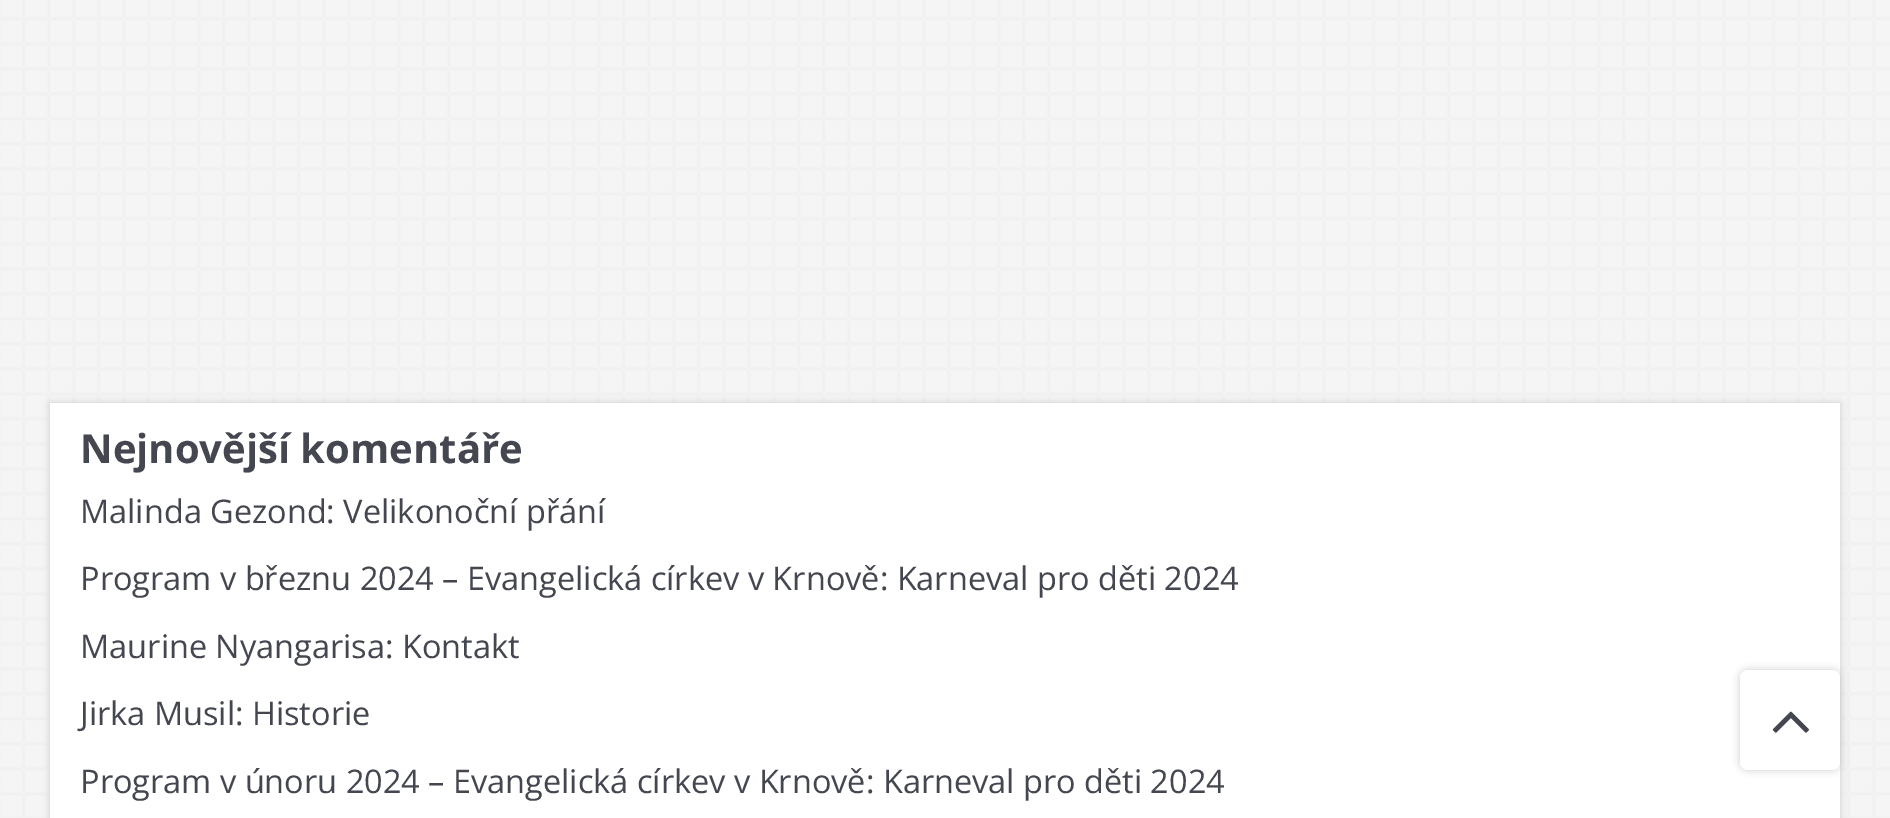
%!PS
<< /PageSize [1890 818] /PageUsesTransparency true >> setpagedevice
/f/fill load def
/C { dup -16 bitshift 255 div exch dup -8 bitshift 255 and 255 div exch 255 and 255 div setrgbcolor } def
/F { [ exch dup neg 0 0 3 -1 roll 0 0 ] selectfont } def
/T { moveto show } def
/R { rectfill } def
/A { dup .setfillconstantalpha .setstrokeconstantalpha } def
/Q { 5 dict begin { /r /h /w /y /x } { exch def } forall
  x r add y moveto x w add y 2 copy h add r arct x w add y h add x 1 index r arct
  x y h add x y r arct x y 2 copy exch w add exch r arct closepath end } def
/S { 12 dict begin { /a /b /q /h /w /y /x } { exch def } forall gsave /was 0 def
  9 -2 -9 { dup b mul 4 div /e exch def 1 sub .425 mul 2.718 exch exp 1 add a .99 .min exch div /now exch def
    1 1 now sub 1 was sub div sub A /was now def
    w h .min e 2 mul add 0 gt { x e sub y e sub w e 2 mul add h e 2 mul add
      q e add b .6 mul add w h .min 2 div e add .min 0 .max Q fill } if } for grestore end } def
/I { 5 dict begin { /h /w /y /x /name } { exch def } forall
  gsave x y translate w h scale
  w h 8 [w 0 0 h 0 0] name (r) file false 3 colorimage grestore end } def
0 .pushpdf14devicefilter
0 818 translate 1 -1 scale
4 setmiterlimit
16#FFFFFF C
0 0 1890 818 R
(1.rgb) 0 0 1890 818 I
16#CCCCCC C
50 403 1790 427 0 4 1 S
16#FFFFFF C
50 403 1790 415 R
/OpenSans-Bold 40 F
16#444650 C
(Nejnovější komentáře) 80 463 T
/OpenSans-Regular 32.5 F
(Malinda Gezond: Velikonoční přání) 80 523 T
(Program v březnu 2024 – Evangelická církev v Krnově: Karneval pro děti 2024) 80 590 T
(Maurine Nyangarisa: Kontakt) 80 658 T
(Jirka Musil: Historie) 80 725 T
(Program v únoru 2024 – Evangelická církev v Krnově: Karneval pro děti 2024) 80 793 T
16#CCCCCC C
1740 670 100 100 8 4 1 S
16#FFFFFF C
1740 670 100 100 8 Q f
(2.rgb) 1772 711 37 22 I
.poppdf14devicefilter showpage
